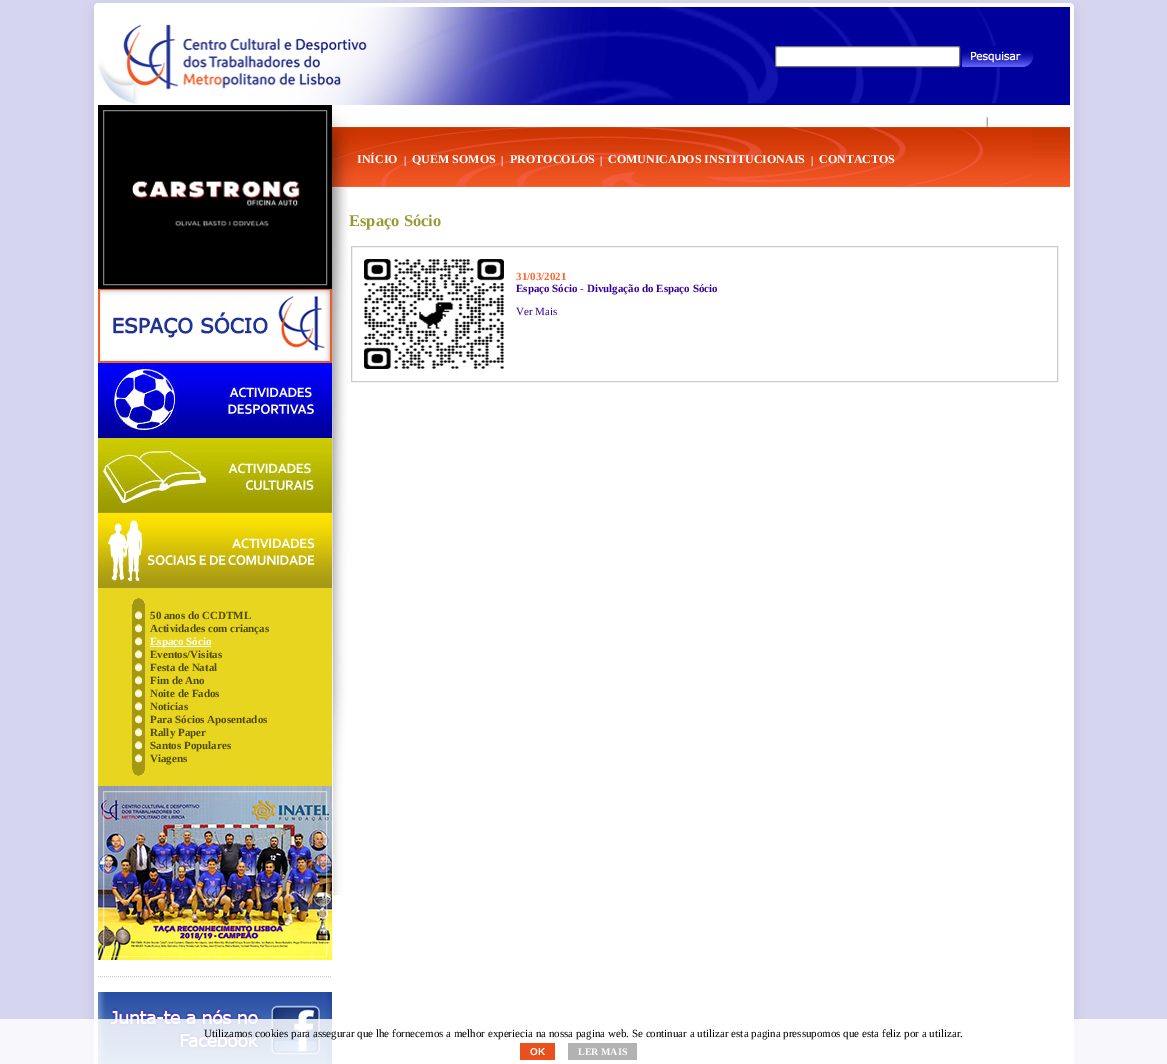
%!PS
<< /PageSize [1167 1064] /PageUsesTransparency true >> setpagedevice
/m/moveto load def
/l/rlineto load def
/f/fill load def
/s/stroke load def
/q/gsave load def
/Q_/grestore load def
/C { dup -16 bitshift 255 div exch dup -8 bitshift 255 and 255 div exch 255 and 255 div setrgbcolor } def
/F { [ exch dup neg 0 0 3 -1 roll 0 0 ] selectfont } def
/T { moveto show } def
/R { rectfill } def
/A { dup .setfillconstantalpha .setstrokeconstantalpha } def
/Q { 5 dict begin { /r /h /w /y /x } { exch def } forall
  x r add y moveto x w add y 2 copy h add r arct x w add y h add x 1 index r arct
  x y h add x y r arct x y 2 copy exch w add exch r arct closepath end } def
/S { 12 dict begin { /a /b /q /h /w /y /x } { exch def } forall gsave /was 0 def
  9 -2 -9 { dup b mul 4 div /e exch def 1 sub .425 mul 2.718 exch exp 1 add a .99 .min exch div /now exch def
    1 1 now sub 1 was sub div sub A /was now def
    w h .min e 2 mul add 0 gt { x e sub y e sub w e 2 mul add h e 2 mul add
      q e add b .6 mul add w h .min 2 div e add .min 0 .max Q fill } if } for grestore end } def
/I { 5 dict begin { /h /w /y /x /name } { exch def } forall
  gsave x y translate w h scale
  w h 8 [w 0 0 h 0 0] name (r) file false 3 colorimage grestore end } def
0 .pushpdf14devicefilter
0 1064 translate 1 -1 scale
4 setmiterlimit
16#D5D5EF C
0 0 1167 1064 R
16#000000 C
94 8 980 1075 4 5 .1 S
16#FFFFFF C
94 3 980 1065 4 Q f
(1.rgb) 98 7 972 98 I
775.5 46.5 184 20 1.5 Q q f Q_
16#767676 C
s
(2.rgb) 962 46 71 21 I
(3.rgb) 98 105 234 184 I
16#808080 C
103.5 110.5 223 174 rectstroke
(4.rgb) 332 105 16 22 I
/LiberationSerif-Bold 11 F
16#666666 C
(|) 986 125 T
(5.rgb) 332 127 738 60 I
/LiberationSerif-Bold 12 F
16#FFFFFF C
(INÍCIO) 357 163 T
/LiberationSerif-Bold 11 F
(|) 404 164 T
/LiberationSerif-Bold 12 F
(QUEM SOMOS) 412 163 T
/LiberationSerif-Bold 11 F
(|) 501 164 T
/LiberationSerif-Bold 12 F
(PROTOCOLOS) 510 163 T
/LiberationSerif-Bold 11 F
(|) 600 164 T
/LiberationSerif-Bold 12 F
(COMUNICADOS INSTITUCIONAIS) 608 163 T
/LiberationSerif-Bold 11 F
(|) 811 164 T
/LiberationSerif-Bold 12 F
(CONTACTOS) 819 163 T
(6.rgb) 332 187 16 708 I
/LiberationSerif-Bold 16.5 F
16#999933 C
(Espaço Sócio) 349 226 T
16#CCCCCC C
351.5 246.5 706 135 rectstroke
(7.rgb) 364 259 140 110 I
/LiberationSerif-Bold 11 F
16#FF6633 C
(31/03/2021) 516 280 T
16#330099 C
(Espaço Sócio - Divulgação do Espaço Sócio) 516 292 T
/LiberationSerif-Regular 11 F
(Ver Mais) 516 315 T
(8.rgb) 98 289 234 74 I
(9.rgb) 98 363 234 75 I
(10.rgb) 98 438 234 75 I
(11.rgb) 98 513 234 75 I
16#E7D520 C
98 588 234 198 R
(12.rgb) 132 598 13 11 I
(13.rgb) 132 609 13 13 I
/LiberationSerif-Bold 11 F
16#514A05 C
(50 anos do CCDTML) 150 619 T
(13.rgb) 132 622 13 13 I
(Actividades com crianças) 150 632 T
(13.rgb) 132 635 13 13 I
16#FFFFFF C
150 646 61 1 R
(Espaço Sócio) 150 645 T
(13.rgb) 132 648 13 13 I
16#514A05 C
(Eventos/Visitas) 150 658 T
(13.rgb) 132 661 13 13 I
(Festa de Natal) 150 671 T
(13.rgb) 132 674 13 13 I
(Fim de Ano) 150 684 T
(13.rgb) 132 687 13 13 I
(Noite de Fados) 150 697 T
(13.rgb) 132 700 13 13 I
(Noticias) 150 710 T
(13.rgb) 132 713 13 13 I
(Para Sócios Aposentados) 150 723 T
(13.rgb) 132 726 13 13 I
(Rally Paper) 150 736 T
(13.rgb) 132 739 13 13 I
(Santos Populares) 150 749 T
(13.rgb) 132 752 13 13 I
(Viagens) 150 762 T
(14.rgb) 132 765 13 11 I
(15.rgb) 98 786 234 174 I
0.5 A
16#FFFFFF C
103.5 791.5 223 165 rectstroke
1 A
16#CCCCCC C
[1 1] 0 setdash
98 976.5 m 234 0 l s
(16.rgb) 98 992 234 72 I
0.83 A
16#FFFFFF C
0 1019 1167 45 R
/LiberationSerif-Regular 11 F
1 A
16#000000 C
(Utilizamos cookies para assegurar que lhe fornecemos a melhor experiecia na nossa pagina web. Se continuar a utilizar esta pagina pressupomos que esta feliz por a utilizar.) 204 1037 T
16#EA501E C
520 1043 35 17 R
/LiberationSans-Bold 10 F
16#FFFFFF C
(OK) 530 1055 T
16#B2B2B2 C
568 1043 69 17 R
/LiberationSerif-Bold 10 F
16#FFFFFF C
(LER MAIS) 578 1055 T
.poppdf14devicefilter showpage
